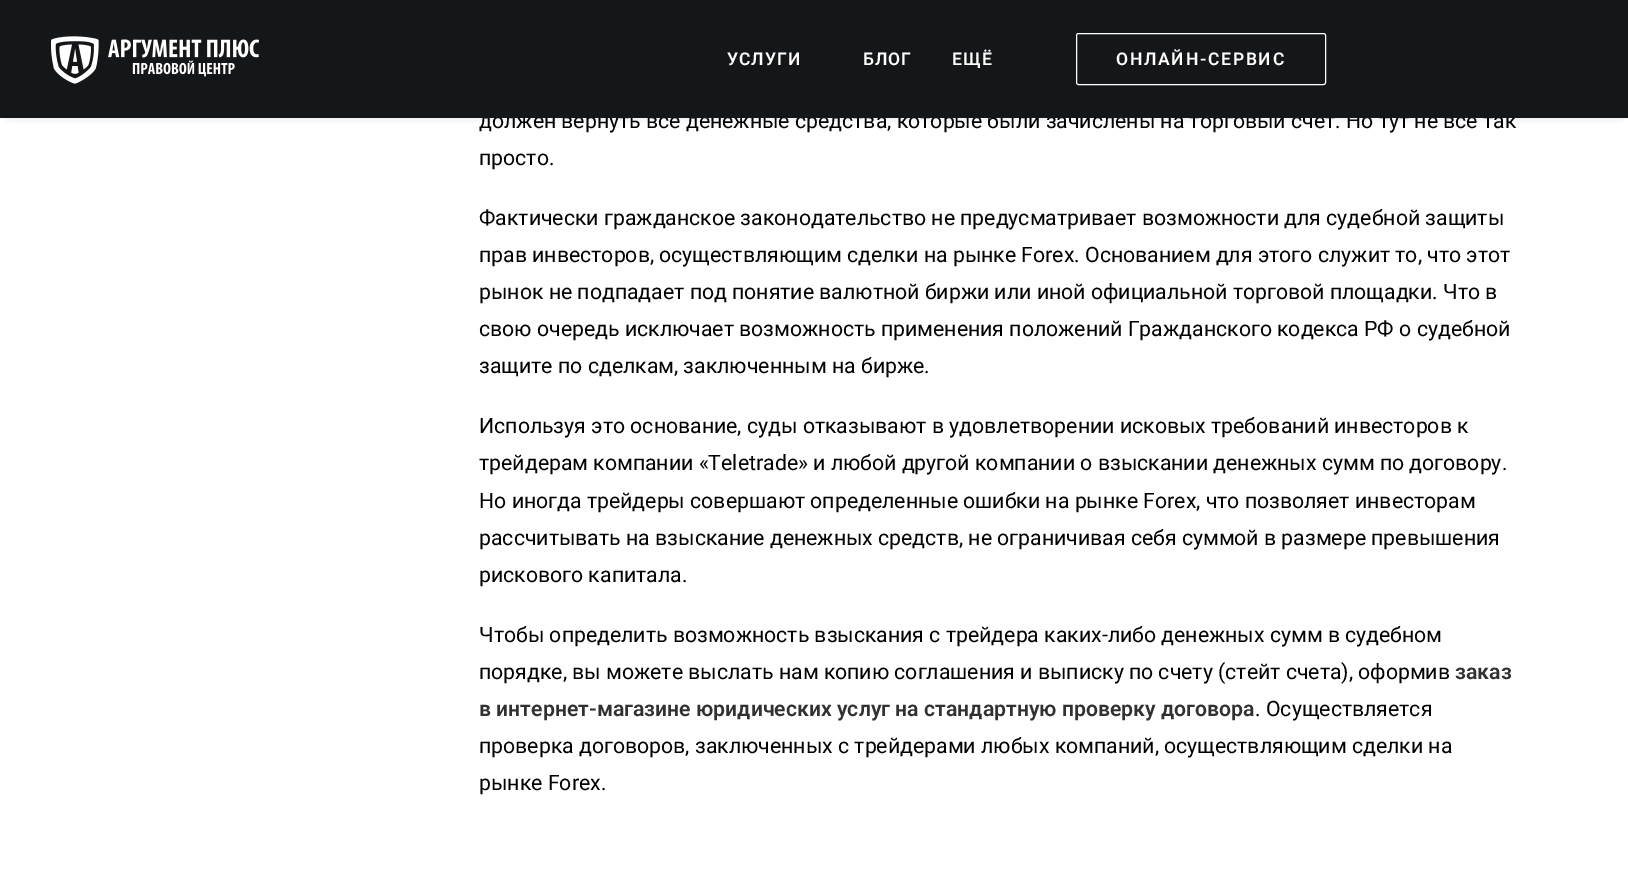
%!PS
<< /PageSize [1628 890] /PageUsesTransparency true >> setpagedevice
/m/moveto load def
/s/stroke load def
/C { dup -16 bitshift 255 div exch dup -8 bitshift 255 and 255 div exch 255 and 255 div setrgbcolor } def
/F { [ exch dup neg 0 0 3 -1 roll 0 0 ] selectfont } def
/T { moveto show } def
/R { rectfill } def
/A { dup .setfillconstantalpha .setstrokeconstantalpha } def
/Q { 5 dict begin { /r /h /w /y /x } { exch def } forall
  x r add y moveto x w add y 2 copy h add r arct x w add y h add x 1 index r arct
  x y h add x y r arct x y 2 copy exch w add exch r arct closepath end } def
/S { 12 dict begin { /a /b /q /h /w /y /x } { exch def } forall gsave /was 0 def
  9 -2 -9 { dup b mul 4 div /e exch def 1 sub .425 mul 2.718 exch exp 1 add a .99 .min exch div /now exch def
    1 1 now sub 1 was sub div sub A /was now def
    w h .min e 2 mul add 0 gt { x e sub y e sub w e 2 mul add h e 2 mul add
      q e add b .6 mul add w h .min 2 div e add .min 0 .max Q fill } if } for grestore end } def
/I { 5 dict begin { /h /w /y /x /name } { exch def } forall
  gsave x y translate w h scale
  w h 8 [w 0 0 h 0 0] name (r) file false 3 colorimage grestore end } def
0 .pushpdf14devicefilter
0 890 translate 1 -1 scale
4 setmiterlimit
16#FFFFFF C
0 0 1628 890 R
16#000000 C
10 18 1610 92 0 6 .6 S
/Roboto-Regular 21.25 F
(должен вернуть все денежные средства, которые были зачислены на торговый счет. Но тут не все так) 479 128 T
16#141618 C
0 0 1628 118 R
(1.rgb) 51 36 208 48 I
/Roboto-SemiBold 17.5 F
16#FFFFFF C
727 65 m 1 0 (УСЛУГИ) ashow
863 65 m 1 0 (БЛОГ) ashow
952 65 m 1 0 (ЕЩЁ) ashow
1076.5 33.5 249 51 2 Q s
1116 65 m 1.75 0 (ОНЛАЙН-СЕРВИС) ashow
/Roboto-Regular 21.25 F
16#000000 C
(просто.) 479 165 T
(Фактически гражданское законодательство не предусматривает возможности для судебной защиты) 479 225 T
(прав инвесторов, осуществляющим сделки на рынке Forex. Основанием для этого служит то, что этот) 479 262 T
(рынок не подпадает под понятие валютной биржи или иной официальной торговой площадки. Что в) 479 299 T
(свою очередь исключает возможность применения положений Гражданского кодекса РФ о судебной) 479 336 T
(защите по сделкам, заключенным на бирже.) 479 373 T
(Используя это основание, суды отказывают в удовлетворении исковых требований инвесторов к) 479 433 T
(трейдерам компании «Teletrade» и любой другой компании о взыскании денежных сумм по договору.) 479 470 T
(Но иногда трейдеры совершают определенные ошибки на рынке Forex, что позволяет инвесторам) 479 508 T
(рассчитывать на взыскание денежных средств, не ограничивая себя суммой в размере превышения) 479 545 T
(рискового капитала.) 479 582 T
(Чтобы определить возможность взыскания с трейдера каких-либо денежных сумм в судебном) 479 642 T
(порядке, вы можете выслать нам копию соглашения и выписку по счету \(стейт счета\), оформив) 479 679 T
/Roboto-SemiBold 21.25 F
16#303133 C
(заказ) 1455 679 T
(в интернет-магазине юридических услуг на стандартную проверку договора) 479 716 T
/Roboto-Regular 21.25 F
16#000000 C
(. Осуществляется) 1255 716 T
(проверка договоров, заключенных с трейдерами любых компаний, осуществляющим сделки на) 479 753 T
(рынке Forex.) 479 790 T
.poppdf14devicefilter showpage
